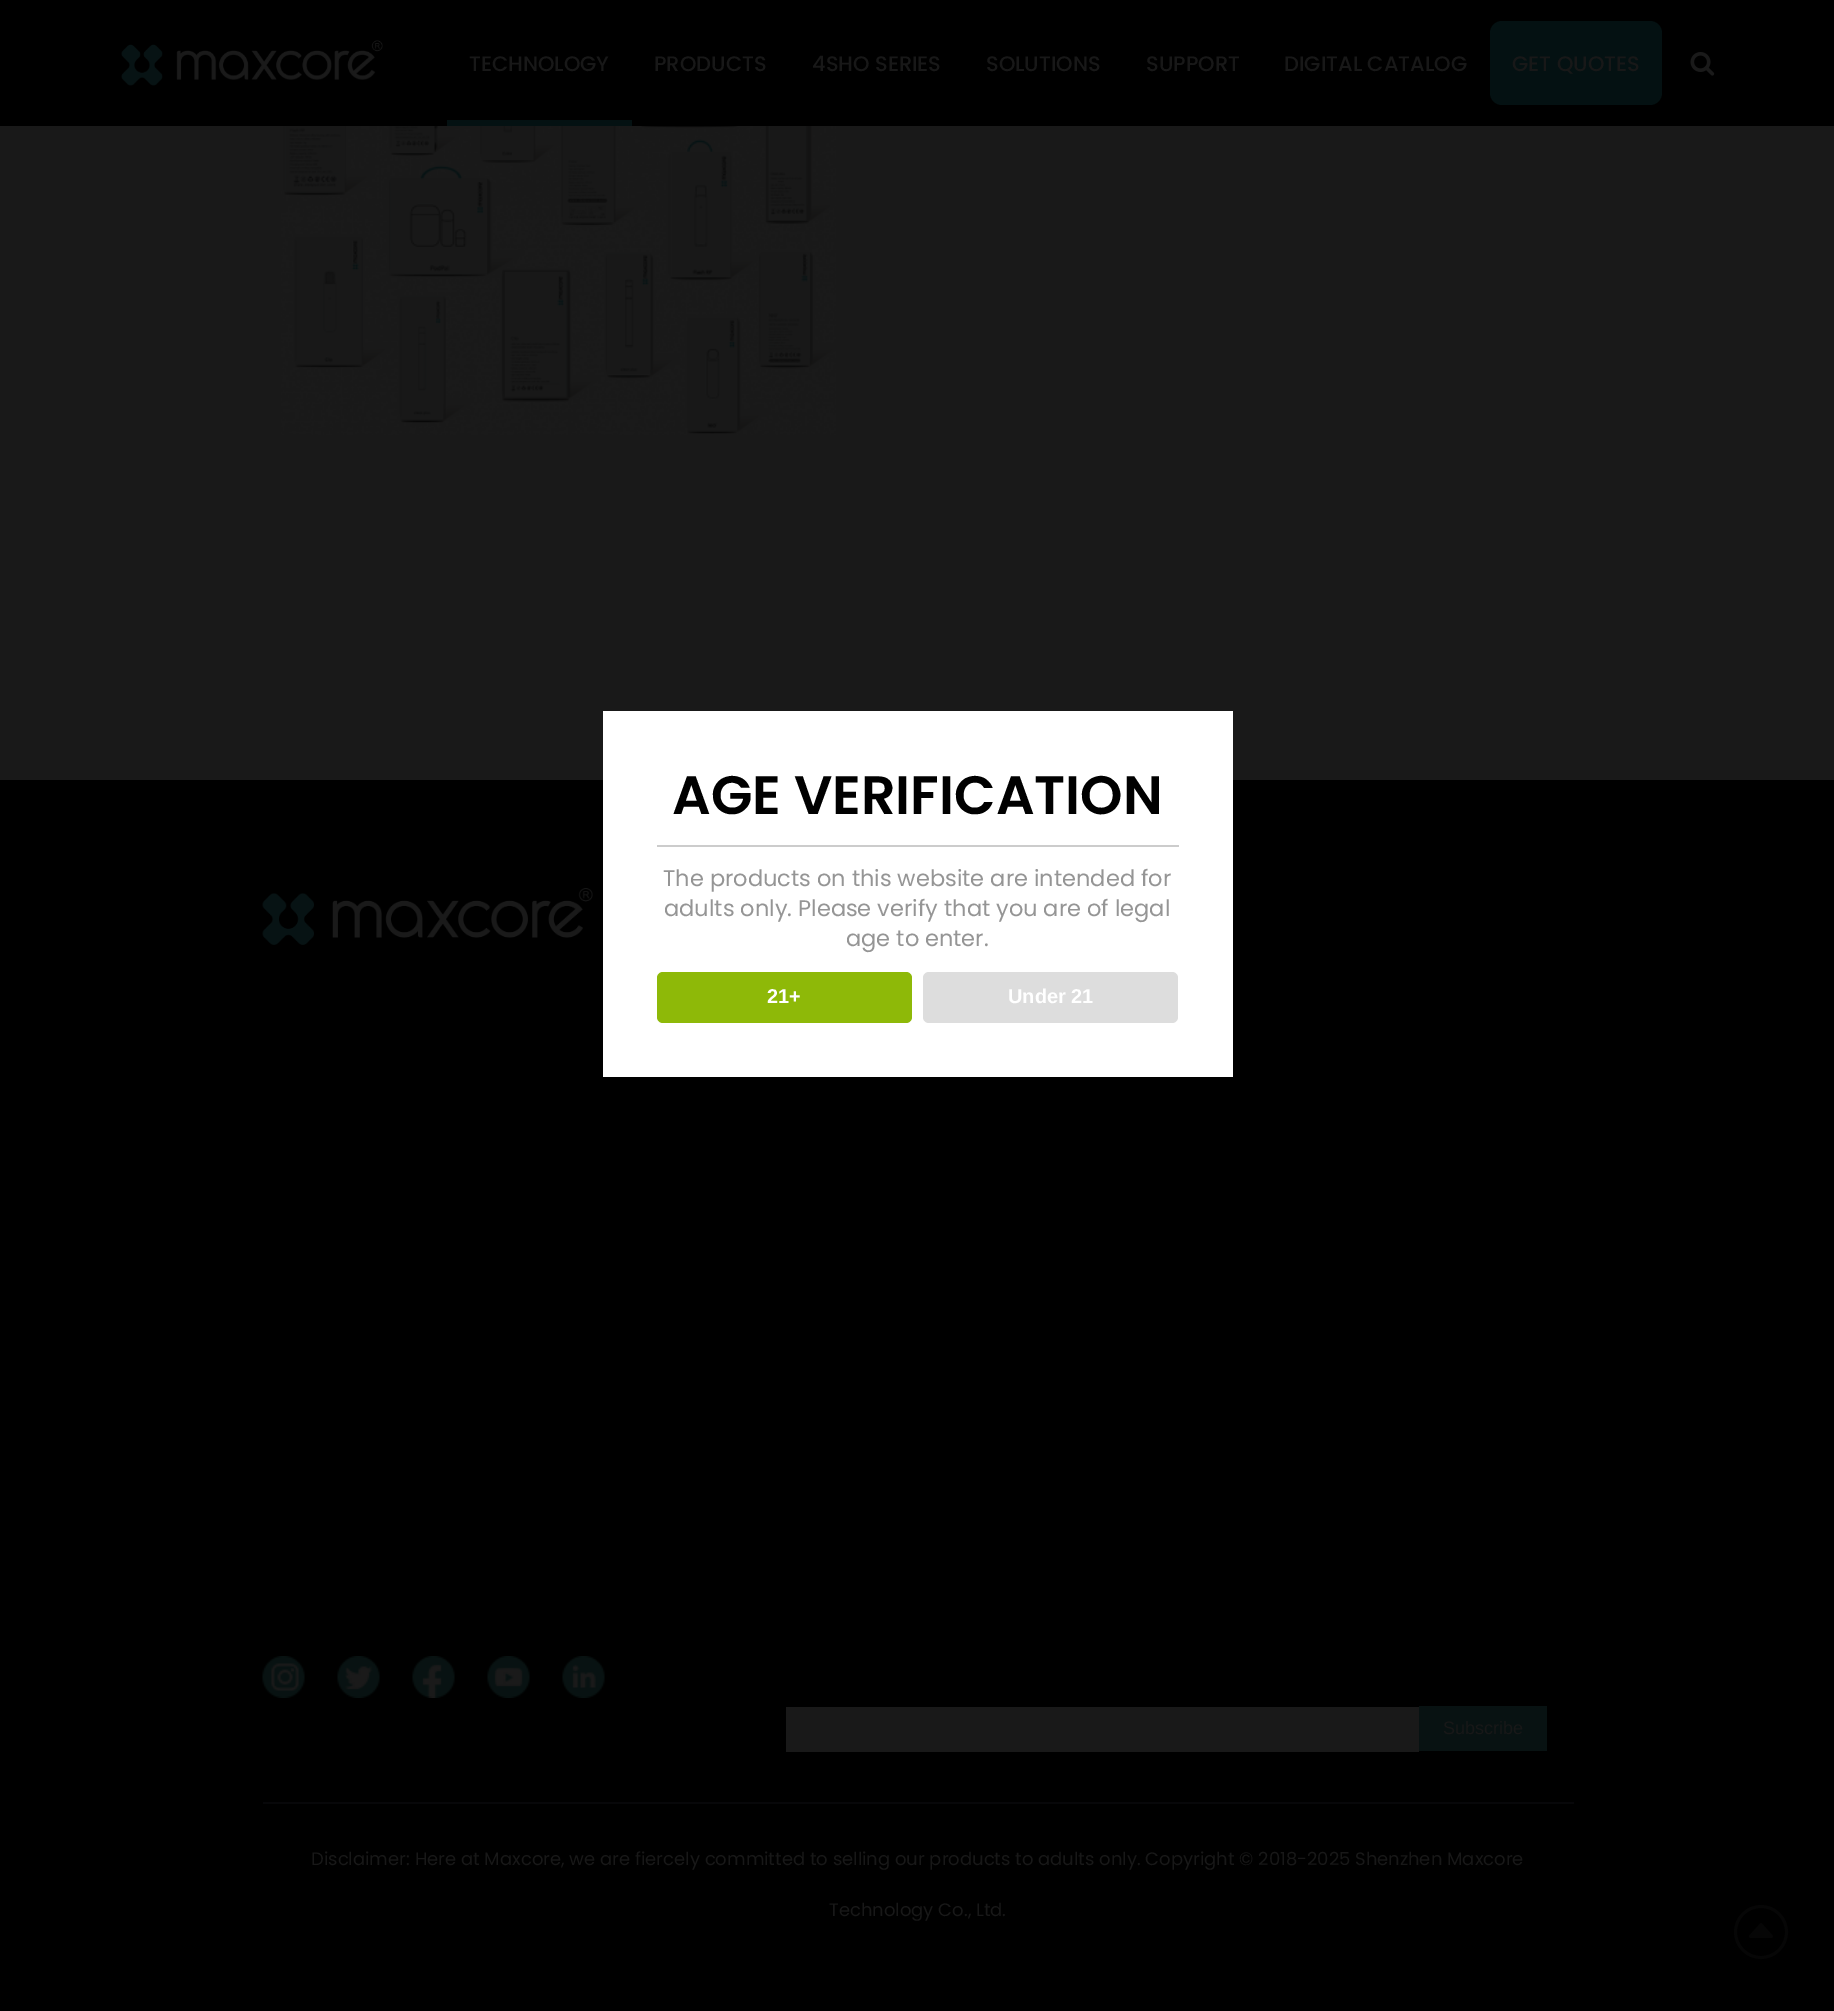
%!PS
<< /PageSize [1834 2011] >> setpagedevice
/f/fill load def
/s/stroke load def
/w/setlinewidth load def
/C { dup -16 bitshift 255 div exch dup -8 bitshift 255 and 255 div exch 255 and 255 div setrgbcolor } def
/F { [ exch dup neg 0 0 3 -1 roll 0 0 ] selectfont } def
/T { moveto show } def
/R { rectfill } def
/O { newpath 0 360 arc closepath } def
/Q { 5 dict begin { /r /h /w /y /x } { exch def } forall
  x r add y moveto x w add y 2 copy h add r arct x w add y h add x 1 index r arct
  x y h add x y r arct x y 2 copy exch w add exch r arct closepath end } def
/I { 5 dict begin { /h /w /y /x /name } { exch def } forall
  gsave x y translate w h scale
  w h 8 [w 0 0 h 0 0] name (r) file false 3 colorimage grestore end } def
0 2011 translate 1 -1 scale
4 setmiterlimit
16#191919 C
0 0 1834 2011 R
16#000000 C
0 0 1834 126 R
(1.rgb) 121 40 262 46 I
/Poppins-Medium 21 F
16#181818 C
(TECHNOLOGY) 469 71 T
(PRODUCTS) 654 71 T
(4SHO SERIES) 812 71 T
(SOLUTIONS) 986 71 T
(SUPPORT) 1146 71 T
(DIGITAL CATALOG) 1284 71 T
16#041112 C
1490 21 172 84 12 Q f
16#181818 C
(GET QUOTES) 1512 71 T
16#041112 C
447 120 185 6 R
(2.rgb) 1690 52 25 24 I
(3.rgb) 281 126 555 309 I
16#000000 C
0 780 1834 1231 R
(4.rgb) 262 888 331 57 I
(5.rgb) 262 1656 43 42 I
(6.rgb) 337 1656 43 42 I
(7.rgb) 412 1656 43 42 I
(8.rgb) 487 1656 43 42 I
(9.rgb) 562 1656 43 42 I
16#191919 C
786 1707 633 45 R
16#081212 C
1419 1706 128 45 R
/LiberationSans-Regular 18 F
16#181818 C
(Subscribe) 1443 1734 T
16#070709 C
263 1802 1311 2 R
/Poppins-Regular 18 F
16#181818 C
(Disclaimer: Here at Maxcore, we are fiercely committed to selling our products to adults only. Copyright © 2018-2025 Shenzhen Maxcore) 311 1865 T
(Technology Co., Ltd.) 829 1916 T
16#060606 C
3 w
1761 1932 25.5 O s
(10.rgb) 1749 1923 24 15 I
16#FFFFFF C
603 711 630 366 R
16#CCCCCC C
657 845 522 2 R
/Poppins-SemiBold 54 F
16#000000 C
(AGE VERIFICATION) 672 814 T
/Poppins-Regular 22.5 F
16#959595 C
(The products on this website are intended for) 663 886 T
(adults only. Please verify that you are of legal) 664 916 T
(age to enter.) 846 946 T
16#8EB908 C
657 972 255 51 6 Q f
/LiberationSans-Bold 20 F
16#FFFFFF C
(21+) 767 1003 T
16#DDDDDD C
923 972 255 51 6 Q f
16#FFFFFF C
(Under 21) 1008 1003 T
showpage
